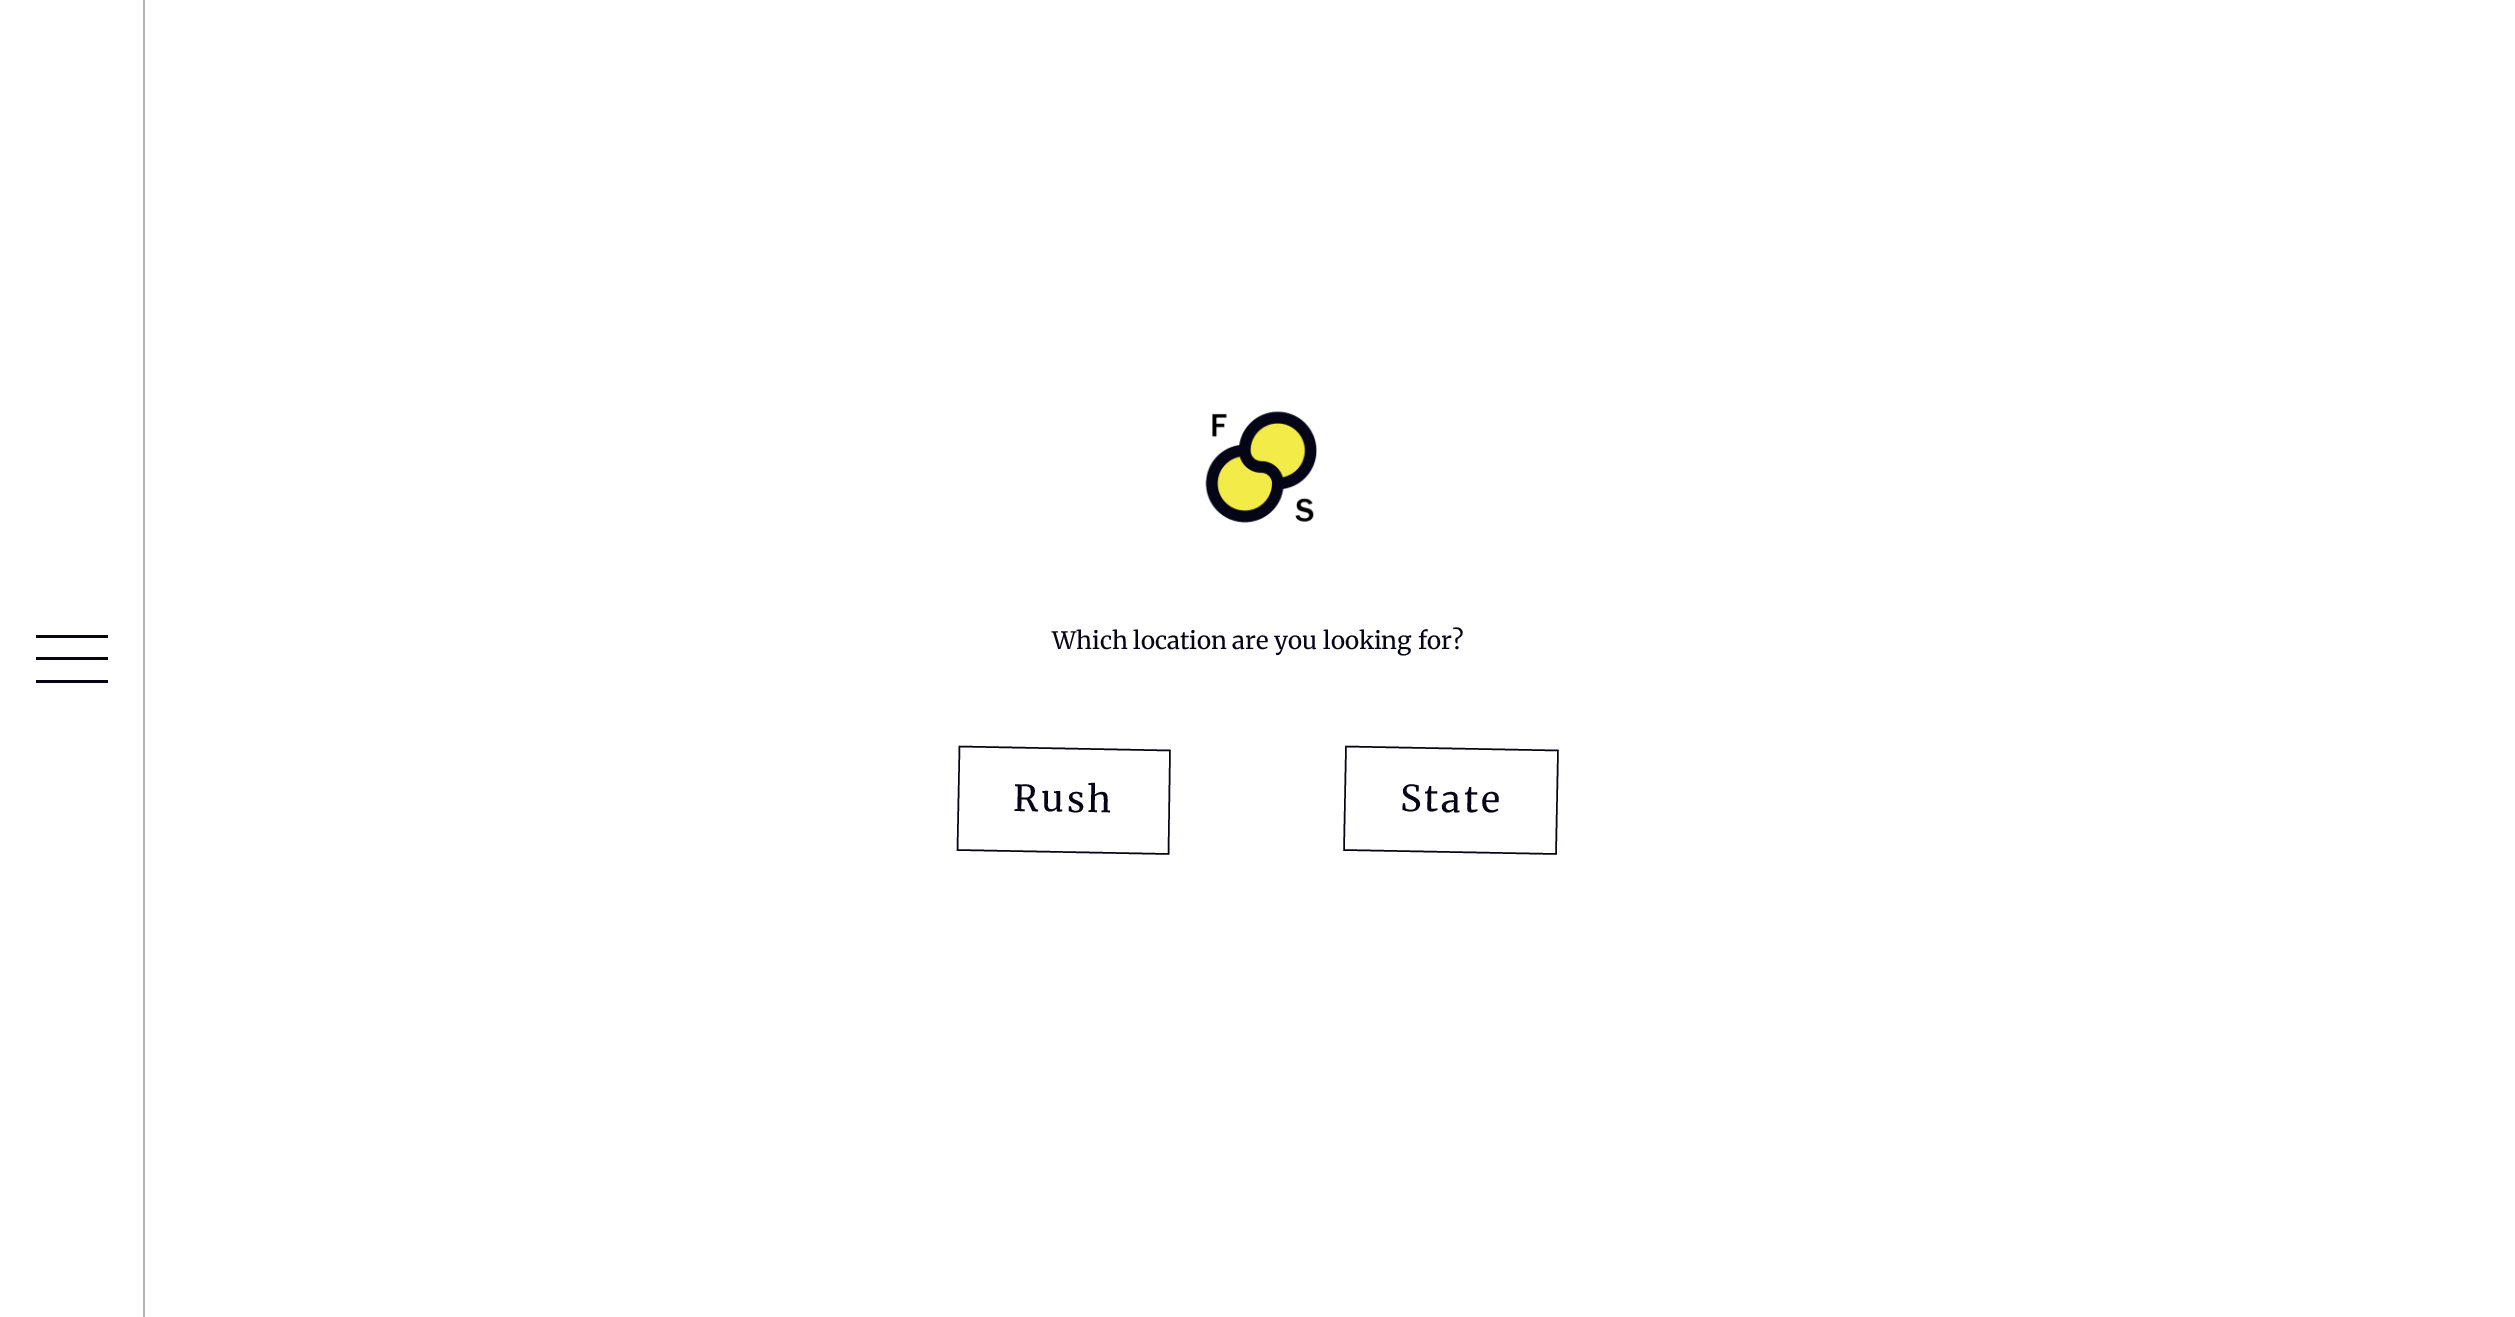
%!PS
<< /PageSize [2515 1317] >> setpagedevice
/m/moveto load def
/l/rlineto load def
/z/closepath load def
/s/stroke load def
/q/gsave load def
/Q_/grestore load def
/w/setlinewidth load def
/C { dup -16 bitshift 255 div exch dup -8 bitshift 255 and 255 div exch 255 and 255 div setrgbcolor } def
/F { [ exch dup neg 0 0 3 -1 roll 0 0 ] selectfont } def
/T { moveto show } def
/R { rectfill } def
/I { 5 dict begin { /h /w /y /x /name } { exch def } forall
  gsave x y translate w h scale
  w h 8 [w 0 0 h 0 0] name (r) file false 3 colorimage grestore end } def
0 1317 translate 1 -1 scale
4 setmiterlimit
16#FFFFFF C
0 0 2515 1317 R
16#B4B4B9 C
143 0 2 1317 R
16#050517 C
36 635 72 3 R
36 657 72 3 R
36 680 72 3 R
(1.rgb) 1205 411 112 112 I
/Merriweather-Regular 24 F
(Which location are you looking for?) 1052 649 T
1.5 w
959.5 746.5 m 210.5 4 l -1.5 103.5 l -211 -4 l z s
/Merriweather-Regular 36 F
q 1013 811 translate 1 rotate 0 0 m 3 0 (Rush) ashow Q_
1346 746.5 m 212 4 l -2 103.5 l -212 -4 l z s
q 1400 811 translate 1 rotate 0 0 m 3 0 (State) ashow Q_
showpage
